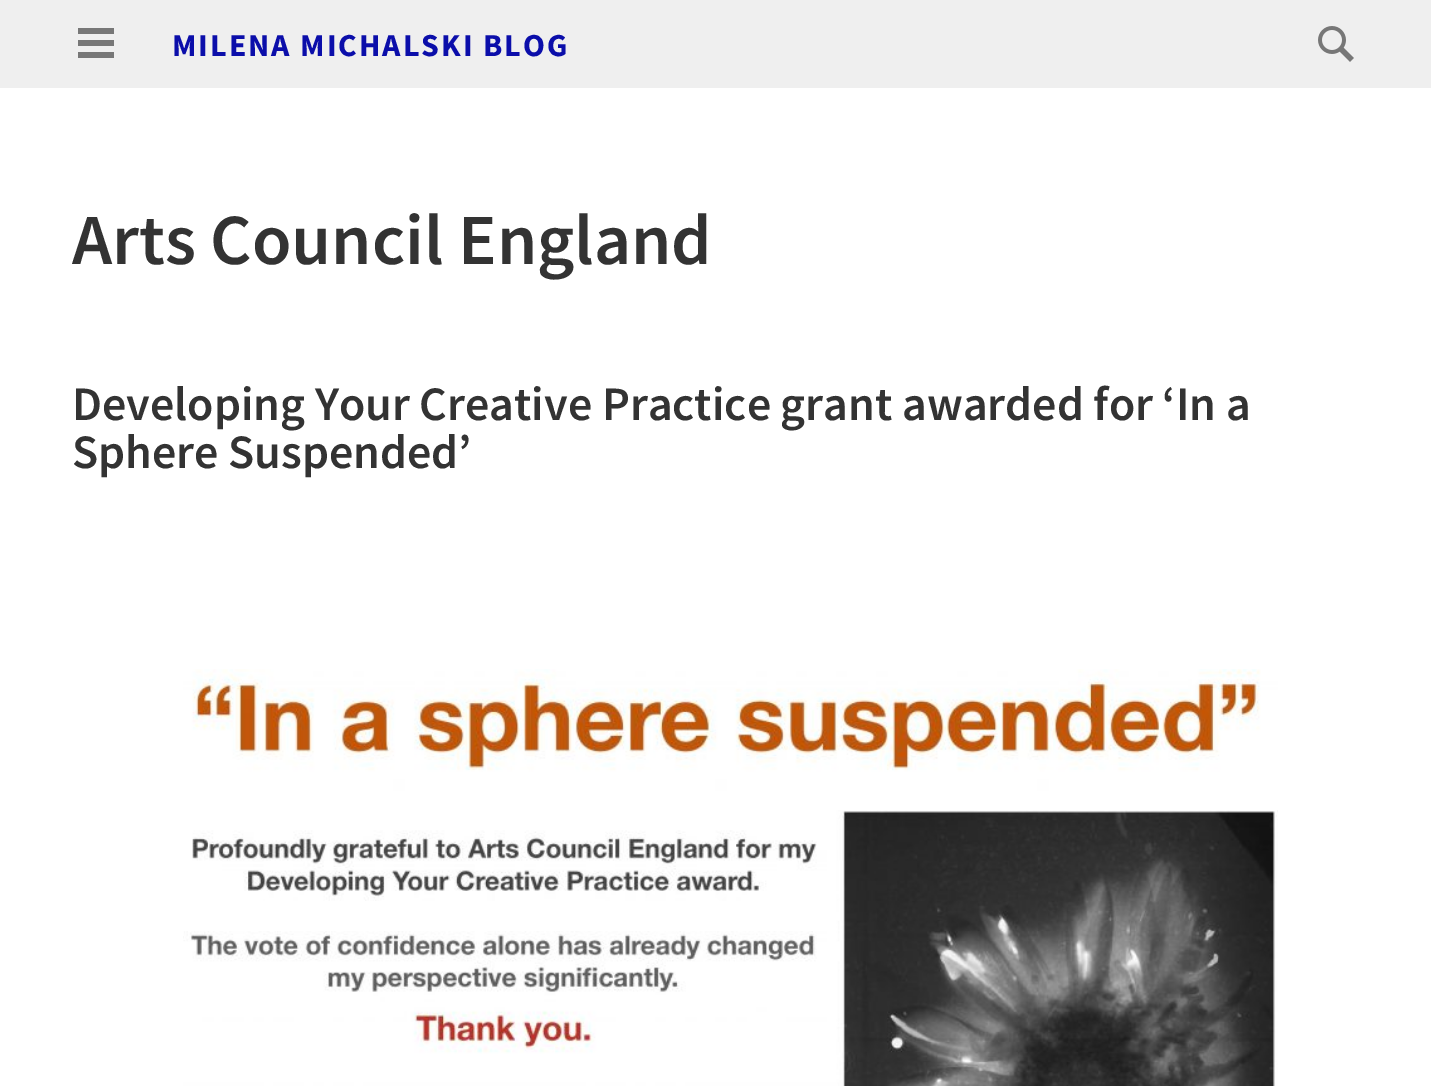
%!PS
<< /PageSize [1431 1086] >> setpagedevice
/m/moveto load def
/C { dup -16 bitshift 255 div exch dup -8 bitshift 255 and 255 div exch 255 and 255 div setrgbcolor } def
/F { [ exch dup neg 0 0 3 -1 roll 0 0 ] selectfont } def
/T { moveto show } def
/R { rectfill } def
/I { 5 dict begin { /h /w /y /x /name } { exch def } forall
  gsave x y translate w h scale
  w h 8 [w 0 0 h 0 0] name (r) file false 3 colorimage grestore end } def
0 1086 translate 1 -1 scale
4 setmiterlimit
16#FFFFFF C
0 0 1431 1086 R
16#EFEFEF C
0 0 1431 88 R
16#777777 C
78 28 36 6 R
78 40 36 6 R
78 52 36 6 R
/SourceSansPro-Bold 32 F
16#0B0EAA C
172 56 m 2 0 (MILENA MICHALSKI BLOG) ashow
(1.rgb) 1318 26 36 36 I
/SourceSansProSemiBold-SemiBold 72 F
16#333333 C
(Arts Council England) 72 264 T
/SourceSansProSemiBold-SemiBold 48 F
(Developing Your Creative Practice grant awarded for ‘In a) 72 420 T
(Sphere Suspended’) 72 468 T
(2.rgb) 183 669 1095 417 I
showpage
